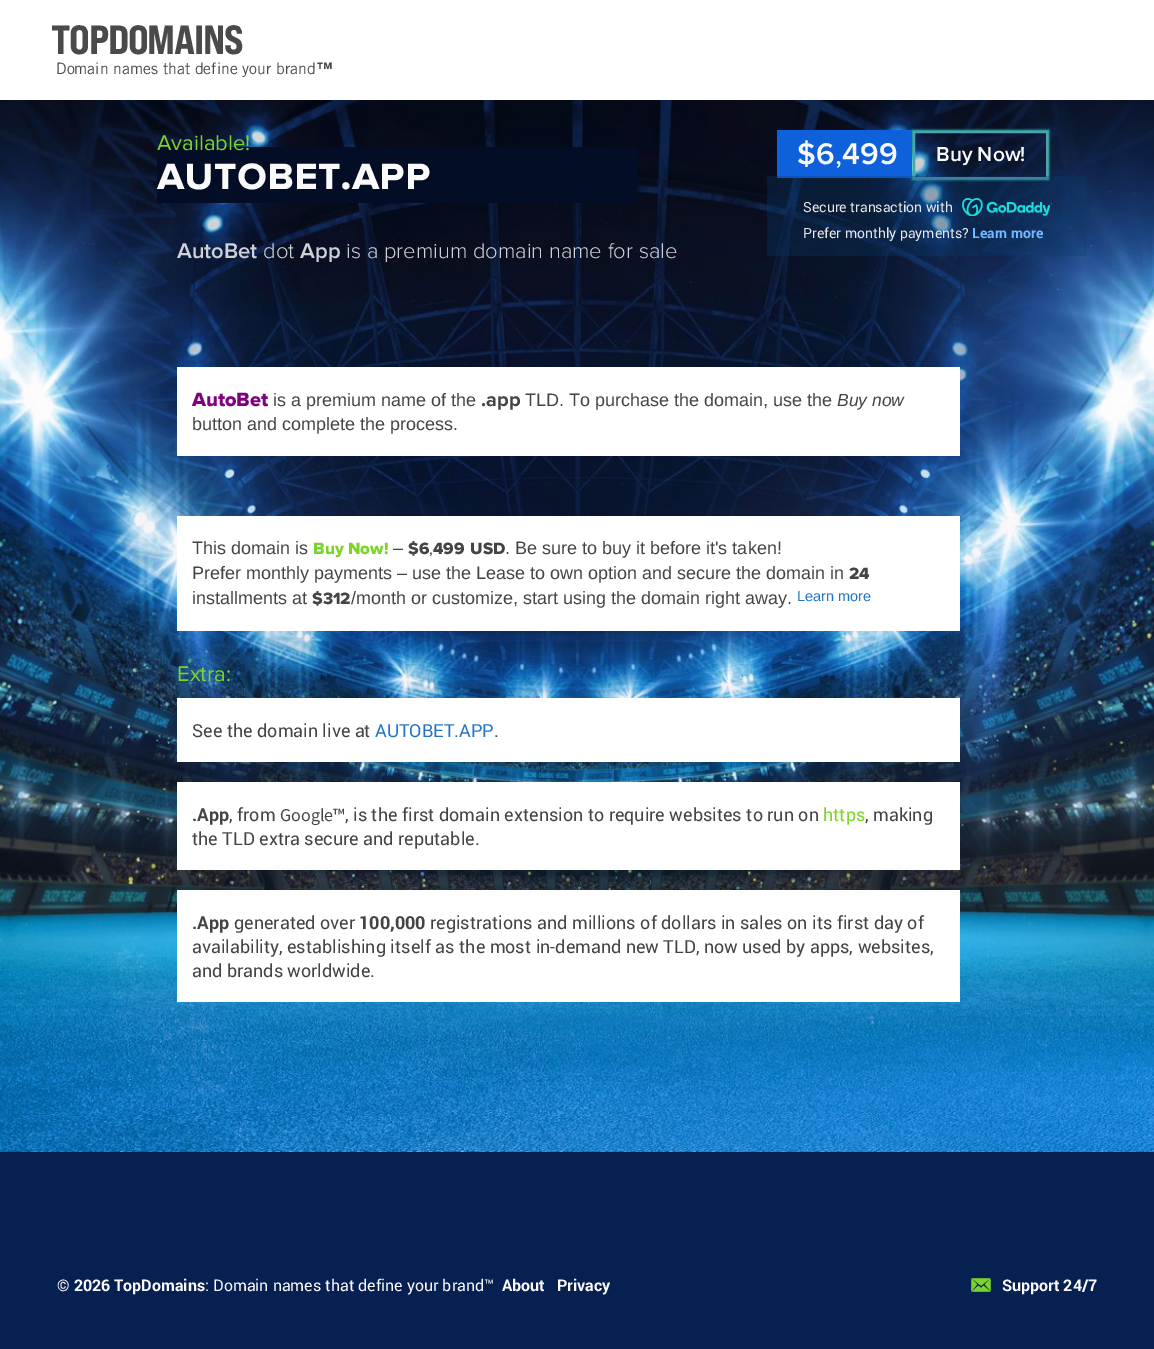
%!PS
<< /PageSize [1154 1349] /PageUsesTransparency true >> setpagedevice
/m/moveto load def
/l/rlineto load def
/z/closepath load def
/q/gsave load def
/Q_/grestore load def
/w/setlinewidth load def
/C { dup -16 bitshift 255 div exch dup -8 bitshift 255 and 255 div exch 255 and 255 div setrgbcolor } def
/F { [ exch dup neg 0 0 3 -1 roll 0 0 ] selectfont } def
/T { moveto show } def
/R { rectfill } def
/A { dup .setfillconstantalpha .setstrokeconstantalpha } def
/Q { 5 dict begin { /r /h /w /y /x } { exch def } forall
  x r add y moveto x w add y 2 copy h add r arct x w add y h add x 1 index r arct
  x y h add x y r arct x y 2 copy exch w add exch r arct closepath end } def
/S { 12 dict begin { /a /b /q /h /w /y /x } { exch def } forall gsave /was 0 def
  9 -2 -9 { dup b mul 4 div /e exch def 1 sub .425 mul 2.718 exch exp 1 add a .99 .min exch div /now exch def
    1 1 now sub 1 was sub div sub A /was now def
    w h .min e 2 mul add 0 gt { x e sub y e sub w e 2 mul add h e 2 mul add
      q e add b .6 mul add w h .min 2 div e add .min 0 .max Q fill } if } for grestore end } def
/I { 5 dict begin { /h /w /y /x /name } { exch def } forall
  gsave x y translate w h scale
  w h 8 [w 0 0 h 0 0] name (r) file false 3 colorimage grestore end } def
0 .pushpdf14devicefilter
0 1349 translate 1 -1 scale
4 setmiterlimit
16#FFFFFF C
0 0 1154 1349 R
/BebasNeue-ExtraBold 40.75 F
16#4A4A4A C
51 54 m -1.25 0 (TOPDOMAINS) ashow
/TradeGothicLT-Regular 15.75 F
(Domain names that define your brand) 56 74 T
/TradeGothicLT-Bold 15.75 F
(™) 317 74 T
16#072052 C
0 1152 1154 197 R
(1.rgb) 0 100 1154 1052 I
0.99 A
16#030D25 C
157 147 480 56 R
/ProximaNova-Regular 22 F
1 A
16#7BD428 C
(Available!) 157 150 T
/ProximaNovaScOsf-Bold 46 F
16#FAFAFA C
(autobet.app) 157 189 T
/ProximaNova-SemiBold 22 F
16#CED1D8 C
(AutoBet) 177 258 T
/ProximaNova-Light 22 F
(dot) 263 258 T
/ProximaNova-SemiBold 22 F
(App) 300 258 T
/ProximaNova-Light 22 F
(is a premium domain name for sale) 346 258 T
q
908 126 m 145 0 l 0 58 l -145 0 l z 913 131 m 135 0 l 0 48 l -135 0 l z eoclip newpath
16#2ED1AB C
912 130 137 50 0 1 1 S
Q_
16#0F61DB C
777 130 135 48 R
/ProximaNova-SemiBold 31 F
16#FAFAFA C
($6) 797 164 T
/ProximaNova-Regular 31 F
(,) 835 164 T
/ProximaNova-SemiBold 31 F
(499) 842 164 T
16#579DB5 C
2 w
914 132 133 46 rectstroke
0.3 A
16#083C6C C
767 176 320 80 R
/Roboto-Regular 14 F
1 A
16#E8E8E8 C
(Secure transaction with) 803 212 T
(2.rgb) 962 198 90 18 I
(Prefer monthly payments?) 803 238 T
/Roboto-Bold 14 F
16#70B8FF C
(Learn more) 972 238 T
/ProximaNova-SemiBold 21 F
16#FAFAFA C
(Buy Now!) 936 161 T
16#FFFFFF C
177 367 783 89 R
/ProximaNova-ExtraBold 20 F
16#800080 C
(AutoBet) 192 406 T
/LiberationSans-Regular 18 F
16#444444 C
(is a premium name of the) 273 406 T
/ProximaNova-Bold 20 F
(.app) 481 406 T
/LiberationSans-Regular 18 F
(TLD. To purchase the domain, use the) 525 406 T
/LiberationSans-Italic 17.5 F
(Buy now) 837 406 T
/LiberationSans-Regular 18 F
(button and complete the process.) 192 430 T
16#FFFFFF C
177 516 783 115 R
16#444444 C
(This domain is) 192 554 T
/ProximaNova-ExtraBold 17 F
16#7BD428 C
(Buy Now!) 313 554 T
/LiberationSans-Regular 18 F
16#444444 C
(–) 393 554 T
/ProximaNova-ExtraBold 17 F
($6) 408 554 T
(499) 433 554 T
(USD) 470 554 T
/LiberationSans-Regular 18 F
(. Be sure to buy it before it's taken!) 505 554 T
/ProximaNova-Regular 17 F
(,) 429 554 T
/LiberationSans-Regular 18 F
(Prefer monthly payments – use the Lease to own option and secure the domain in) 192 579 T
/ProximaNova-ExtraBold 17 F
(24) 849 579 T
/LiberationSans-Regular 18 F
(installments at) 192 604 T
/ProximaNova-ExtraBold 17 F
($312) 312 604 T
/LiberationSans-Regular 18 F
(/month or customize, start using the domain right away.) 351 604 T
/LiberationSans-Regular 14.5 F
16#2374C4 C
(Learn more) 797 601 T
/ProximaNova-Regular 22 F
16#7BD428 C
(Extra:) 177 681 T
16#FFFFFF C
177 698 783 64 R
/Roboto-Regular 18 F
16#444444 C
(See the domain live at) 192 737 T
16#2374C4 C
(AUTOBET.APP) 375 737 T
16#444444 C
(.) 494 737 T
16#FFFFFF C
177 782 783 88 R
/Roboto-Bold 18 F
16#444444 C
(.App) 192 821 T
/Roboto-Regular 18 F
(, from) 229 821 T
/SourceSansPro-Regular 18 F
(Google™) 280 821 T
/Roboto-Regular 18 F
(, is the first domain extension to require websites to run on) 345 821 T
16#7BD428 C
(https) 823 821 T
16#444444 C
(, making) 865 821 T
(the TLD extra secure and reputable.) 192 845 T
16#FFFFFF C
177 890 783 112 R
/Roboto-Bold 18 F
16#444444 C
(.App) 192 929 T
/Roboto-Regular 18 F
(generated over) 234 929 T
/Roboto-Bold 18 F
(100,000) 359 929 T
/Roboto-Regular 18 F
(registrations and millions of dollars in sales on its first day of) 430 929 T
(availability, establishing itself as the most in-demand new TLD, now used by apps, websites,) 192 953 T
(and brands worldwide.) 192 977 T
/Roboto-Bold 16 F
16#FAFAFA C
(© 2026 TopDomains) 57 1291 T
/Roboto-Regular 16 F
(: Domain names that define your brand™) 205 1291 T
/Roboto-Bold 16 F
(About) 502 1291 T
(Privacy) 557 1291 T
(3.rgb) 971 1278 20 14 I
(Support 24/7) 1002 1291 T
.poppdf14devicefilter showpage
